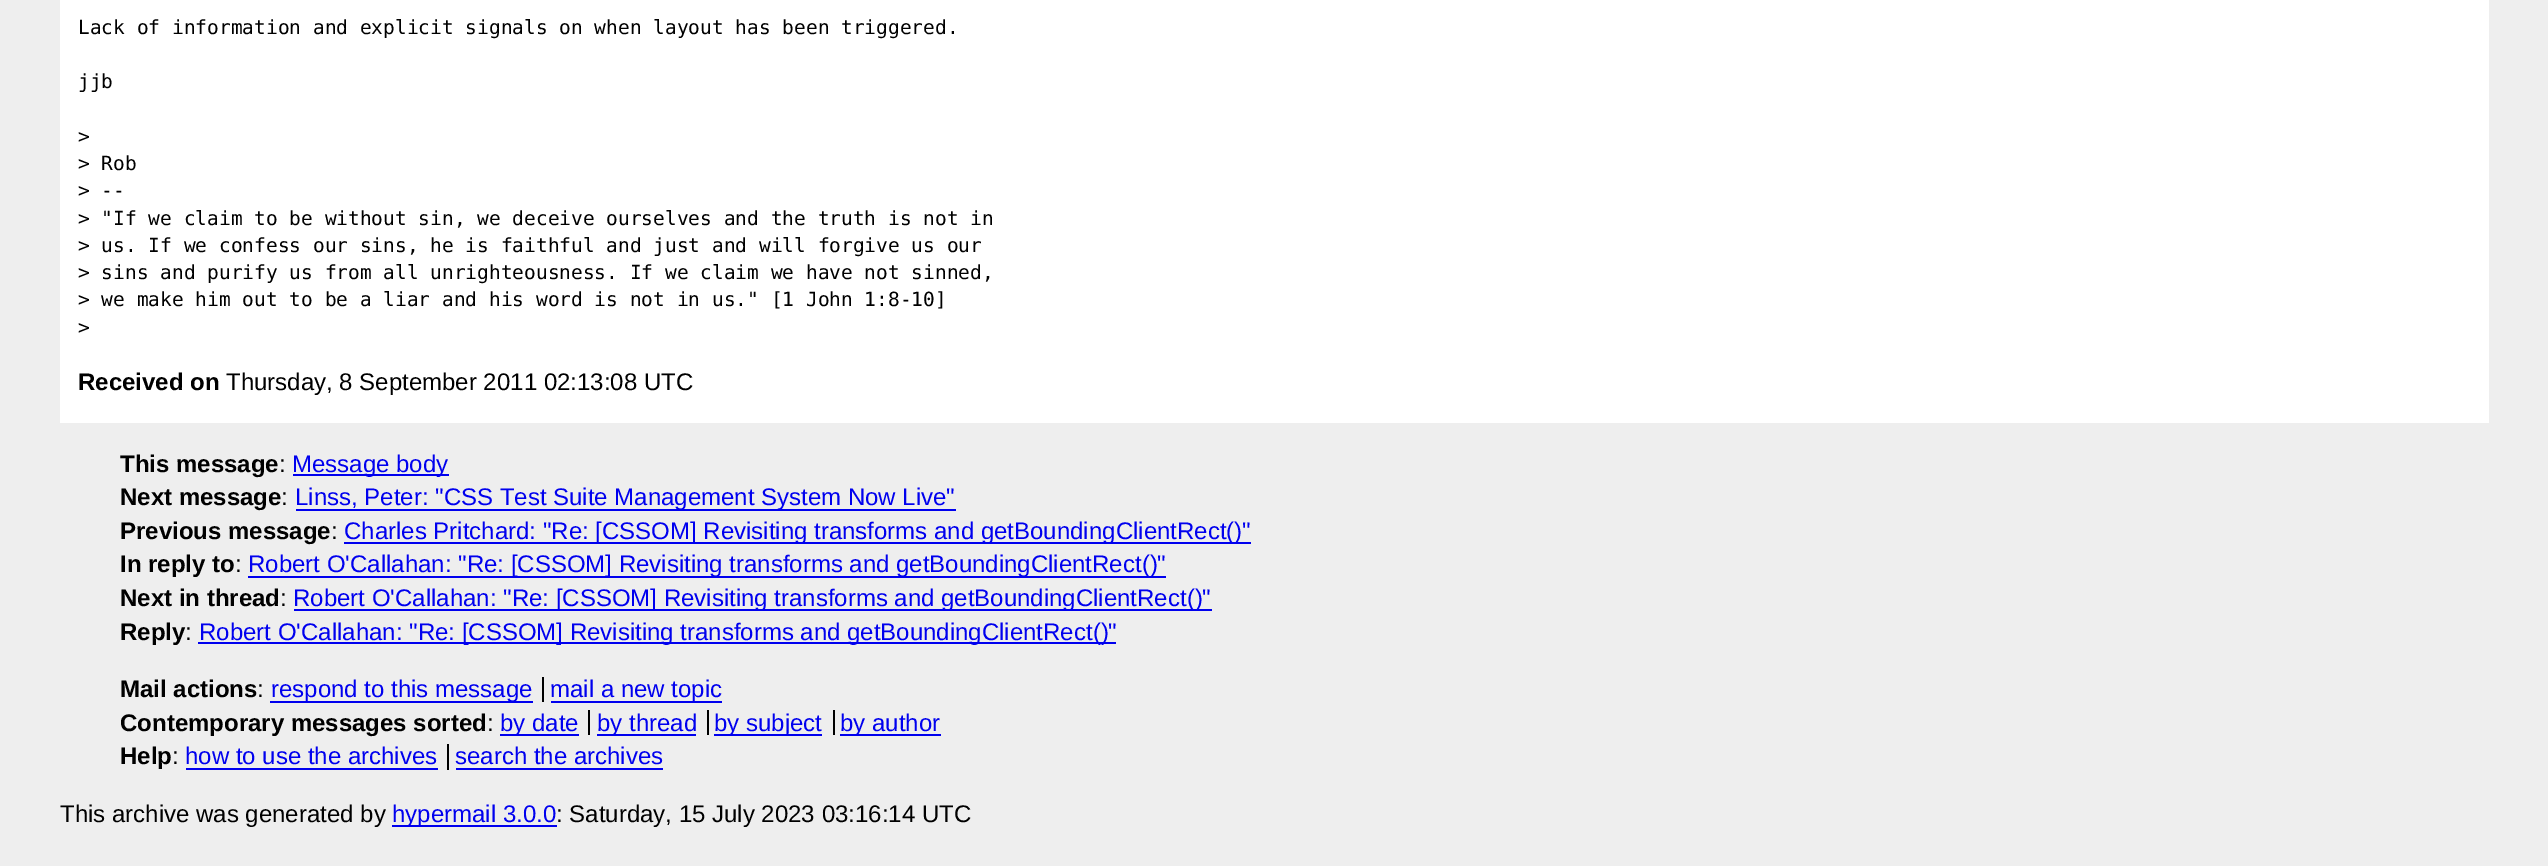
%!PS
<< /PageSize [2548 866] >> setpagedevice
/C { dup -16 bitshift 255 div exch dup -8 bitshift 255 and 255 div exch 255 and 255 div setrgbcolor } def
/F { [ exch dup neg 0 0 3 -1 roll 0 0 ] selectfont } def
/T { moveto show } def
/R { rectfill } def
0 866 translate 1 -1 scale
4 setmiterlimit
16#EEEEEE C
0 0 2548 866 R
16#FFFFFF C
60 0 2429 423 R
/DejaVuSansMono-Regular 19.5 F
16#000000 C
(Lack of information and explicit signals on when layout has been triggered.) 78 34 T
(jjb) 78 88 T
(>) 78 143 T
(> Rob) 78 170 T
(> --) 78 197 T
(> "If we claim to be without sin, we deceive ourselves and the truth is not in) 78 225 T
(> us. If we confess our sins, he is faithful and just and will forgive us our) 78 252 T
(> sins and purify us from all unrighteousness. If we claim we have not sinned,) 78 279 T
(> we make him out to be a liar and his word is not in us." [1 John 1:8-10]) 78 306 T
(>) 78 334 T
/LiberationSans-Bold 24 F
(Received on) 78 390 T
/LiberationSans-Regular 24 F
(Thursday, 8 September 2011 02:13:08 UTC) 226 390 T
/LiberationSans-Bold 24 F
(This message) 120 472 T
/LiberationSans-Regular 24 F
(:) 279 472 T
16#0000EE C
293 474 156 2 R
(Message body) 292 472 T
/LiberationSans-Bold 24 F
16#000000 C
(Next message) 120 505 T
/LiberationSans-Regular 24 F
(:) 281 505 T
16#0000EE C
296 509 660 2 R
(Linss, Peter: "CSS Test Suite Management System Now Live") 295 505 T
/LiberationSans-Bold 24 F
16#000000 C
(Previous message) 120 539 T
/LiberationSans-Regular 24 F
(:) 331 539 T
16#0000EE C
344 542 907 2 R
(Charles Pritchard: "Re: [CSSOM] Revisiting transforms and getBoundingClientRect\(\)") 344 539 T
/LiberationSans-Bold 24 F
16#000000 C
(In reply to) 120 572 T
/LiberationSans-Regular 24 F
(:) 235 572 T
16#0000EE C
248 576 918 2 R
(Robert O'Callahan: "Re: [CSSOM] Revisiting transforms and getBoundingClientRect\(\)") 248 572 T
/LiberationSans-Bold 24 F
16#000000 C
(Next in thread) 120 606 T
/LiberationSans-Regular 24 F
(:) 280 606 T
16#0000EE C
294 609 918 2 R
(Robert O'Callahan: "Re: [CSSOM] Revisiting transforms and getBoundingClientRect\(\)") 293 606 T
/LiberationSans-Bold 24 F
16#000000 C
(Reply) 120 640 T
/LiberationSans-Regular 24 F
(:) 185 640 T
16#0000EE C
198 642 918 2 R
(Robert O'Callahan: "Re: [CSSOM] Revisiting transforms and getBoundingClientRect\(\)") 199 640 T
/LiberationSans-Bold 24 F
16#000000 C
(Mail actions) 120 697 T
/LiberationSans-Regular 24 F
(:) 257 697 T
16#0000EE C
270 701 263 2 R
(respond to this message) 271 697 T
551 701 171 2 R
(mail a new topic) 550 697 T
16#000000 C
542 677 2 25 R
/LiberationSans-Bold 24 F
(Contemporary messages sorted) 120 731 T
/LiberationSans-Regular 24 F
(:) 487 731 T
16#0000EE C
500 734 79 2 R
(by date) 500 731 T
597 734 99 2 R
(by thread) 597 731 T
16#000000 C
588 710 2 25 R
16#0000EE C
714 734 108 2 R
(by subject) 714 731 T
16#000000 C
707 710 2 25 R
16#0000EE C
840 734 101 2 R
(by author) 840 731 T
16#000000 C
833 710 2 25 R
/LiberationSans-Bold 24 F
(Help) 120 764 T
/LiberationSans-Regular 24 F
(:) 172 764 T
16#0000EE C
(how to use the archives) 185 764 T
186 768 252 2 R
(search the archives) 455 764 T
16#000000 C
447 744 2 26 R
16#0000EE C
456 768 207 2 R
16#000000 C
(This archive was generated by) 60 822 T
16#0000EE C
392 825 165 2 R
(hypermail 3.0.0) 392 822 T
16#000000 C
(: Saturday, 15 July 2023 03:16:14 UTC) 556 822 T
showpage
